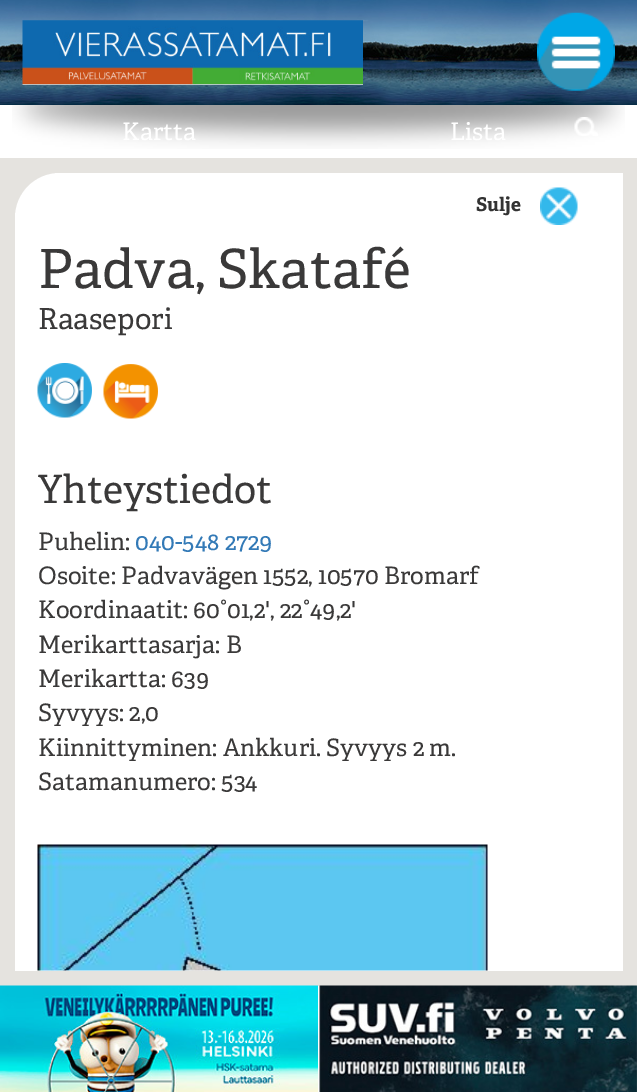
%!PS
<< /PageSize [637 1092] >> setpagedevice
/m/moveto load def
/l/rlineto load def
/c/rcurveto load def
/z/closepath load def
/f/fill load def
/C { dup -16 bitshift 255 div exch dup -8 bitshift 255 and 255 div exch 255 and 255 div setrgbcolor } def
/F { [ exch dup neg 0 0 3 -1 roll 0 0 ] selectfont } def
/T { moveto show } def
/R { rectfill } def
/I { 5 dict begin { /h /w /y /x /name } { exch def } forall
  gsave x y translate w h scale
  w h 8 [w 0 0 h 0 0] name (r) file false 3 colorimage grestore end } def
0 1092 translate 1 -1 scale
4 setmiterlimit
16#FFFFFF C
0 0 637 1092 R
(1.rgb) 0 0 637 105 I
(2.rgb) 22 20 341 65 I
(3.rgb) 537 12 78 79 I
(4.rgb) 12 105 613 44 I
/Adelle-Regular 24 F
(Kartta) 122 140 T
(Lista) 450 140 T
(5.rgb) 574 117 24 19 I
16#E5E3DF C
0 158 637 828 R
16#FFFFFF C
60 173 m 563 0 l 0 798 l -608 0 l 0 -753 l 0 -25 20 -45 45 -45 c z f
/Adelle-Bold 19 F
16#333333 C
(Sulje) 476 211 T
(6.rgb) 540 187 38 38 I
/Adelle-Regular 54 F
16#3A3939 C
(Padva, Skatafé) 38 288 T
/Adelle-Regular 29 F
(Raasepori) 38 329 T
(7.rgb) 37 363 55 55 I
(8.rgb) 103 364 55 55 I
/Adelle-Regular 39 F
(Yhteystiedot) 38 503 T
/Adelle-Regular 24 F
(Puhelin:) 38 550 T
16#337AB7 C
(040-548 2729) 135 550 T
16#3A3939 C
(Osoite: Padvavägen 1552, 10570 Bromarf) 38 584 T
(Koordinaatit: 60°01,2', 22°49,2') 38 618 T
(Merikarttasarja: B) 38 653 T
(Merikartta: 639) 38 687 T
(Syvyys: 2,0) 38 721 T
(Kiinnittyminen: Ankkuri. Syvyys 2 m.) 38 756 T
(Satamanumero: 534) 38 790 T
(9.rgb) 37 844 451 127 I
(10.rgb) 0 985 318 107 I
(11.rgb) 319 985 318 107 I
showpage
